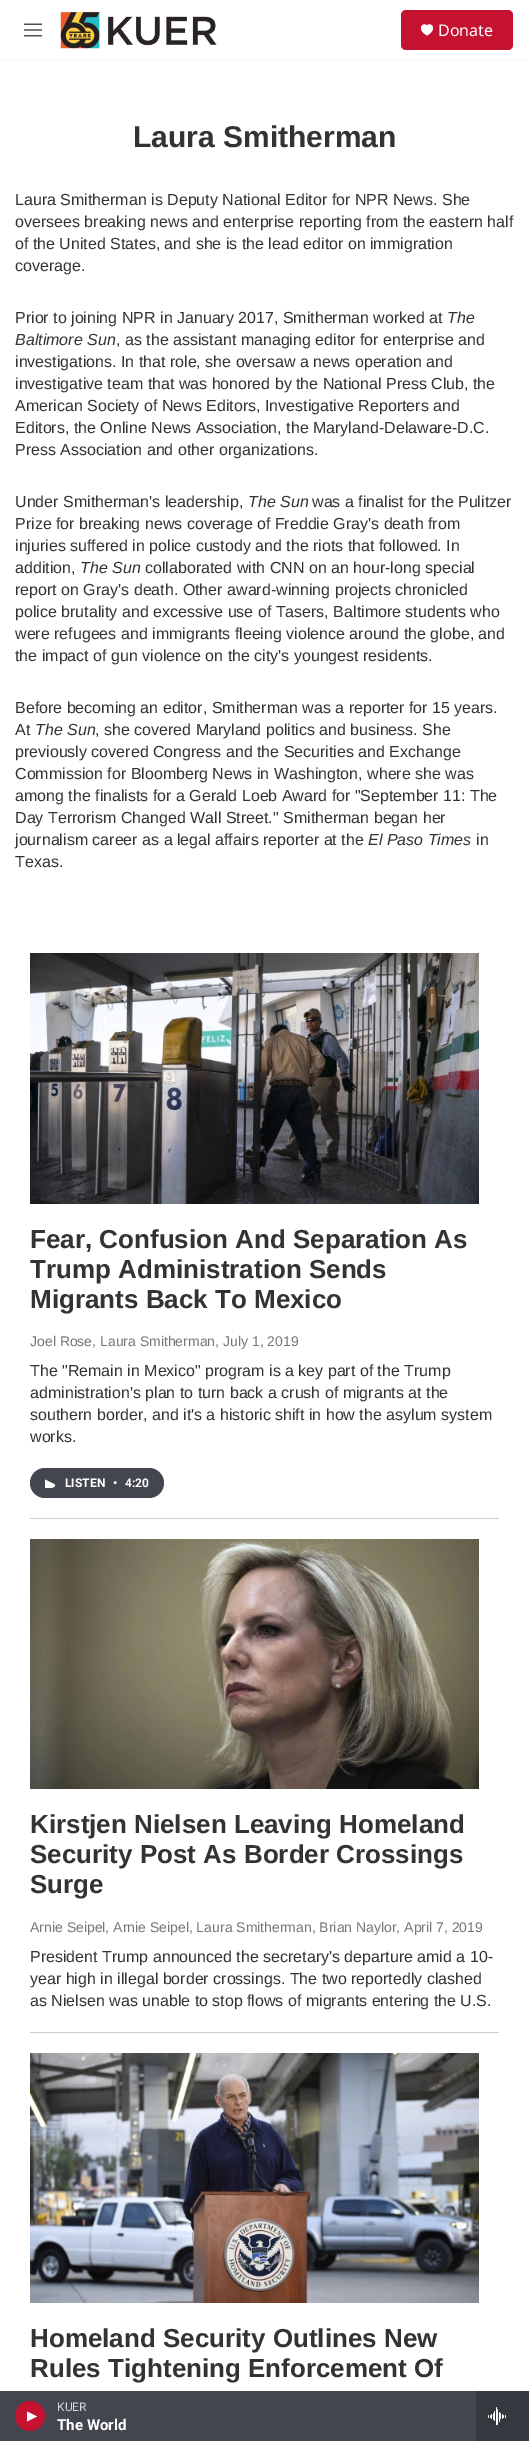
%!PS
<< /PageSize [529 2441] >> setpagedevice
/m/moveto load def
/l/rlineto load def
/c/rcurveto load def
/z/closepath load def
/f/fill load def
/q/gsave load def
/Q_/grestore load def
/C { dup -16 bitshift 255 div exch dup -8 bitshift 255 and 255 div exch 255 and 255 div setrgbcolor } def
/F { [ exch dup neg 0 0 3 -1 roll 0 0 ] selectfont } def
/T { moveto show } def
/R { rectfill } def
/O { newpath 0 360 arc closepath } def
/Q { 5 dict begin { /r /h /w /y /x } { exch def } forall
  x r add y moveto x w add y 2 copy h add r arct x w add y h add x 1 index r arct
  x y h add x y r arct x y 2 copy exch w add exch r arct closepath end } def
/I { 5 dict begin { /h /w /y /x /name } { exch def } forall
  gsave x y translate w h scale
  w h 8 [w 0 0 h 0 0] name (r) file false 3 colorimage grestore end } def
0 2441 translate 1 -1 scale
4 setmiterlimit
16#FFFFFF C
0 0 529 2441 R
16#F5F5F5 C
0 60 529 1 R
(1.rgb) 24 23 18 14 I
(2.rgb) 60 12 157 37 I
16#C41230 C
401 10 112 40 5 Q f
16#FFFFFF C
427 26 m -2 -5 -12.5 2 0 9.5 c 12.5 -7.5 2 -14.5 0 -9.5 c z f
/NotoSans-Regular 16 F
(Donate) 438 36 T
16#44464F C
0 2391 476 50 R
16#C41230 C
30 2416 15 O f
16#FFFFFF C
27 2411.5 m 10 5 l -10 5 l z f
/Roboto-Regular 12 F
16#DADADC C
(KUER) 57 2411 T
/Roboto-Bold 15 F
16#FFFFFF C
(The World) 57 2430 T
16#36383F C
476 2391 53 50 R
(3.rgb) 488 2407 18 18 I
/LiberationSans-Bold 30 F
16#333333 C
(Laura Smitherman) 133 147 T
/LiberationSans-Regular 16 F
(Laura Smitherman is Deputy National Editor for NPR News. She) 15 205 T
(oversees breaking news and enterprise reporting from the eastern half) 15 227 T
(of the United States, and she is the lead editor on immigration) 15 249 T
(coverage.) 15 271 T
(Prior to joining NPR in January 2017, Smitherman worked at) 15 323 T
/LiberationSans-Italic 16 F
(The) 447 323 T
(Baltimore Sun) 15 345 T
/LiberationSans-Regular 16 F
(, as the assistant managing editor for enterprise and) 116 345 T
(investigations. In that role, she oversaw a news operation and) 15 367 T
(investigative team that was honored by the National Press Club, the) 15 389 T
(American Society of News Editors, Investigative Reporters and) 15 411 T
(Editors, the Online News Association, the Maryland-Delaware-D.C.) 15 433 T
(Press Association and other organizations.) 15 455 T
(Under Smitherman's leadership,) 15 507 T
/LiberationSans-Italic 16 F
(The Sun) 248 507 T
/LiberationSans-Regular 16 F
(was a finalist for the Pulitzer) 312 507 T
(Prize for breaking news coverage of Freddie Gray's death from) 15 529 T
(injuries suffered in police custody and the riots that followed. In) 15 551 T
(addition,) 15 573 T
/LiberationSans-Italic 16 F
(The Sun) 80 573 T
/LiberationSans-Regular 16 F
(collaborated with CNN on an hour-long special) 145 573 T
(report on Gray's death. Other award-winning projects chronicled) 15 595 T
(police brutality and excessive use of Tasers, Baltimore students who) 15 617 T
(were refugees and immigrants fleeing violence around the globe, and) 15 639 T
(the impact of gun violence on the city's youngest residents.) 15 661 T
(Before becoming an editor, Smitherman was a reporter for 15 years.) 15 713 T
(At) 15 735 T
/LiberationSans-Italic 16 F
(The Sun) 35 735 T
/LiberationSans-Regular 16 F
(, she covered Maryland politics and business. She) 95 735 T
(previously covered Congress and the Securities and Exchange) 15 757 T
(Commission for Bloomberg News in Washington, where she was) 15 779 T
(among the finalists for a Gerald Loeb Award for "September 11: The) 15 801 T
(Day Terrorism Changed Wall Street." Smitherman began her) 15 823 T
(journalism career as a legal affairs reporter at the) 15 845 T
/LiberationSans-Italic 16 F
(El Paso Times) 368 845 T
/LiberationSans-Regular 16 F
(in) 476 845 T
(Texas.) 15 867 T
16#CCCCCC C
30 1518 469 1 R
(4.rgb) 30 953 449 251 I
/LiberationSans-Bold 26 F
16#333333 C
(Fear, Confusion And Separation As) 30 1248 T
(Trump Administration Sends) 30 1278 T
(Migrants Back To Mexico) 30 1308 T
/LiberationSans-Regular 14 F
16#767676 C
(Joel Rose, Laura Smitherman, July 1, 2019) 30 1346 T
/LiberationSans-Regular 16 F
16#333333 C
(The "Remain in Mexico" program is a key part of the Trump) 30 1376 T
(administration's plan to turn back a crush of migrants at the) 30 1398 T
(southern border, and it's a historic shift in how the asylum system) 30 1420 T
(works.) 30 1442 T
16#44464F C
30 1468 134 30 15 Q f
q
45 1478 10 10 rectclip
16#FFFFFF C
45 1479.5 m 12 6 l -12 6 l z f
Q_
/Roboto-Bold 12 F
16#FFFFFF C
(LISTEN) 65 1487 T
(•) 113 1487 T
(4:20) 125 1487 T
16#CCCCCC C
30 2032 469 1 R
(5.rgb) 30 1539 449 250 I
/LiberationSans-Bold 26 F
16#333333 C
(Kirstjen Nielsen Leaving Homeland) 30 1833 T
(Security Post As Border Crossings) 30 1863 T
(Surge) 30 1893 T
/LiberationSans-Regular 14 F
16#767676 C
(Arnie Seipel, Arnie Seipel, Laura Smitherman, Brian Naylor, April 7, 2019) 30 1932 T
/LiberationSans-Regular 16 F
16#333333 C
(President Trump announced the secretary's departure amid a 10-) 30 1962 T
(year high in illegal border crossings. The two reportedly clashed) 30 1984 T
(as Nielsen was unable to stop flows of migrants entering the U.S.) 30 2006 T
(6.rgb) 30 2053 449 250 I
/LiberationSans-Bold 26 F
(Homeland Security Outlines New) 30 2347 T
(Rules Tightening Enforcement Of) 30 2377 T
showpage
